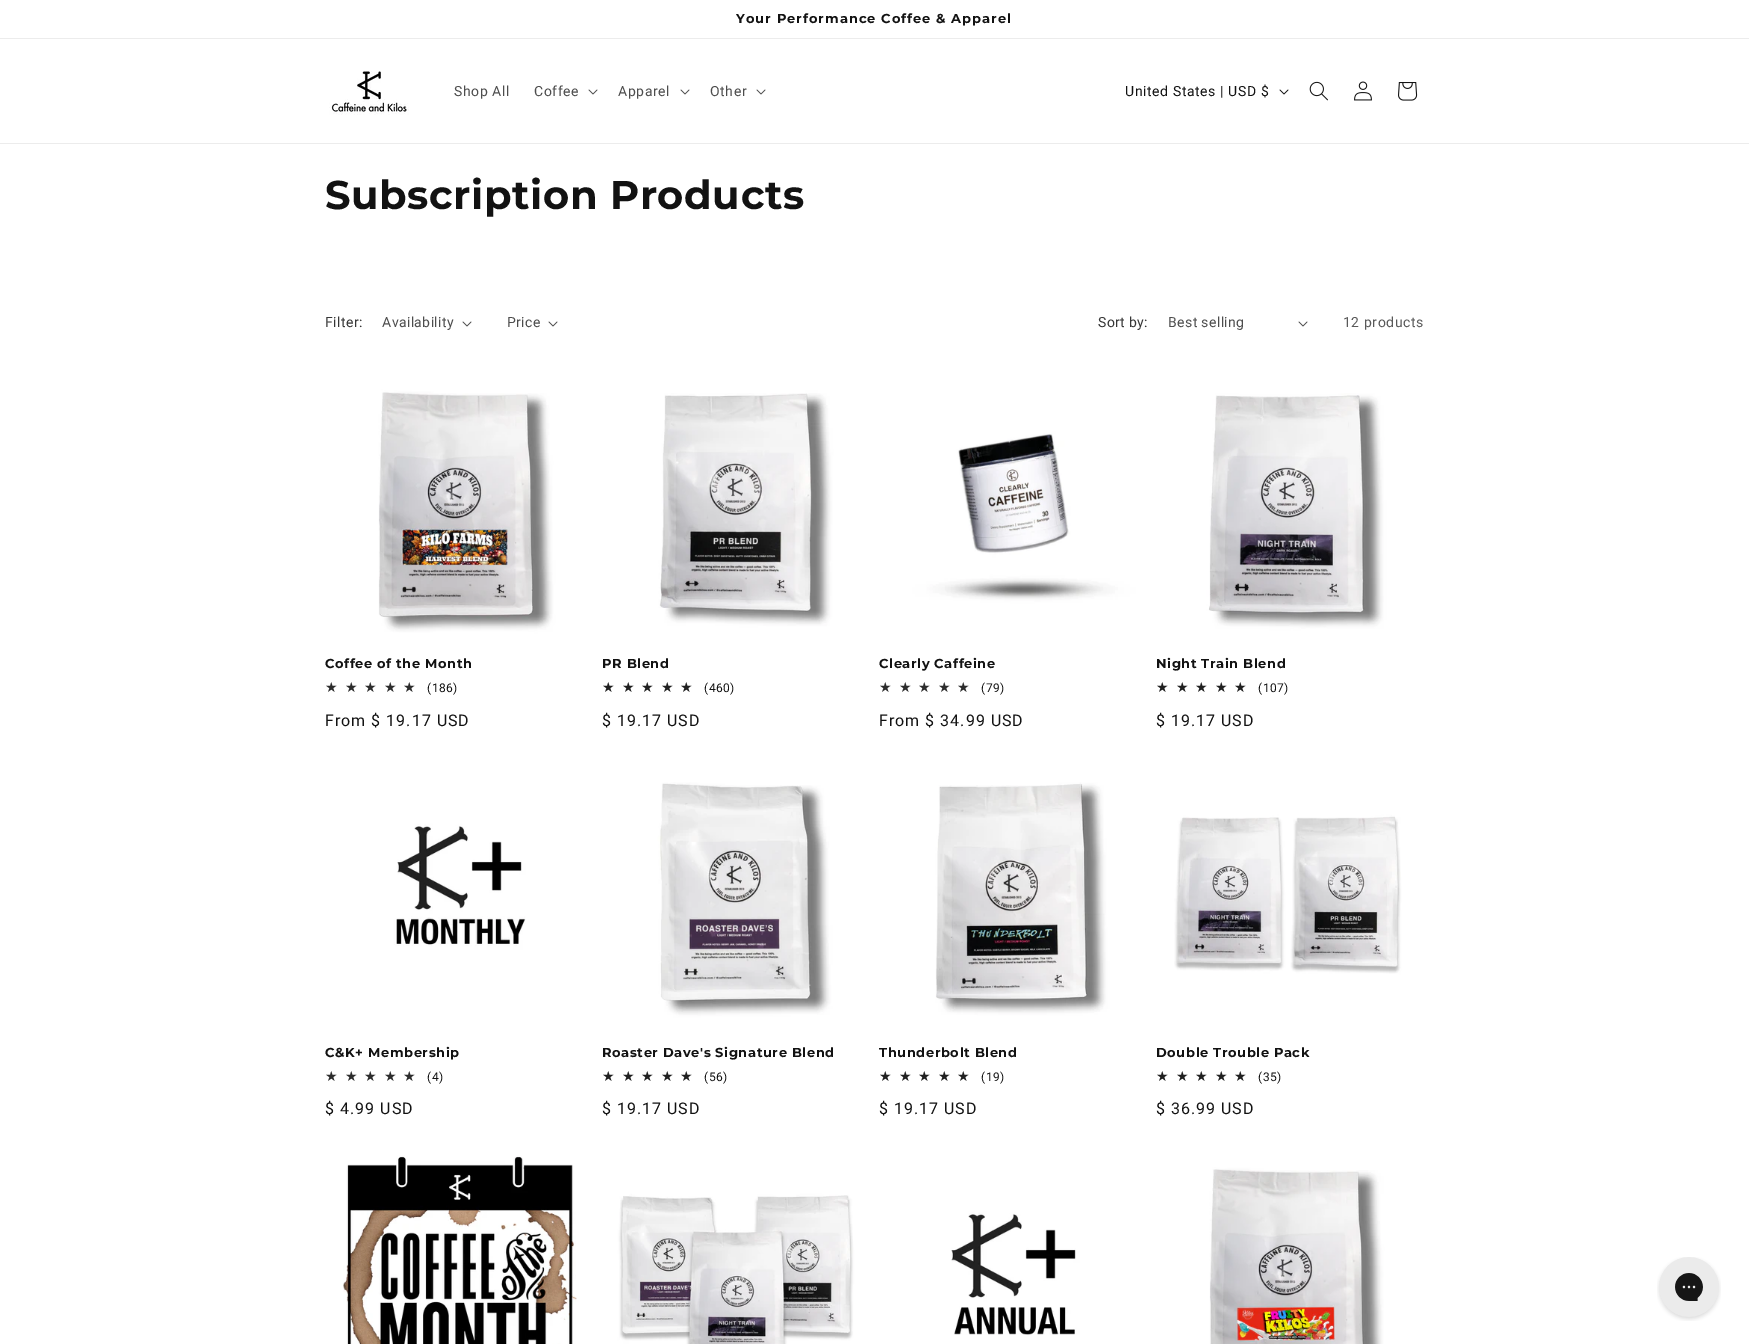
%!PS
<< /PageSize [1749 1344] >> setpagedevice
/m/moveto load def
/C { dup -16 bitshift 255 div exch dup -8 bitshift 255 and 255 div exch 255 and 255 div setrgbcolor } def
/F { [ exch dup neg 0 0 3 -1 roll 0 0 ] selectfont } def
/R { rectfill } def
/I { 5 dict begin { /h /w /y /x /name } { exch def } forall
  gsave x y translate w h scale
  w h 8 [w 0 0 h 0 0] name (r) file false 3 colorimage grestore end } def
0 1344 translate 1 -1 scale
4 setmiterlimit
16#FFFFFF C
0 0 1749 1344 R
16#ECECEC C
0 38 1749 1 R
/Montserrat-Bold 13 F
16#121212 C
736 23 m 1 0 (Your Performance Coffee & Apparel) ashow
16#ECECEC C
0 143 1749 1 R
(1.rgb) 329 71 80 44 I
/Roboto-Regular 14 F
16#4D4D4D C
454 96 m .6 0 (Shop All) ashow
534 96 m .6 0 (Coffee) ashow
(2.rgb) 588 89 10 6 I
618 96 m .6 0 (Apparel) ashow
(2.rgb) 680 89 10 6 I
710 96 m .6 0 (Other) ashow
(2.rgb) 756 89 10 6 I
16#121212 C
1125 96 m .6 0 (United States | USD $) ashow
(3.rgb) 1279 89 10 6 I
(4.rgb) 1309 81 19 20 I
(5.rgb) 1354 81 18 20 I
(6.rgb) 1398 82 20 19 I
/Montserrat-Bold 40 F
325 209 m .6 0 (Subscription Products) ashow
/Roboto-Regular 14 F
16#363636 C
325 327 m .4 0 (Filter:) ashow
16#4D4D4D C
382 327 m .4 0 (Availability) ashow
(2.rgb) 462 321 10 6 I
507 327 m .4 0 (Price) ashow
(2.rgb) 548 321 10 6 I
16#363636 C
1098 327 m .4 0 (Sort by:) ashow
16#4D4D4D C
1168 327 m .4 0 (Best selling) ashow
(2.rgb) 1298 321 10 6 I
16#595959 C
1343 327 m .6 0 (12 products) ashow
(7.rgb) 325 369 269 269 I
/Montserrat-Bold 13 F
16#121212 C
325 668 m .6 0 (Coffee of the Month) ashow
/DejaVuSans-Regular 14 F
16#2C2C2C C
325 692 m 7 0 (★★★★★) ashow
/Roboto-Regular 12 F
16#121212 C
427 692 m .5 0 (\(186\)) ashow
/Roboto-Regular 16 F
325 726 m 1 0 (From $ 19.17 USD) ashow
(8.rgb) 602 369 269 269 I
/Montserrat-Bold 13 F
602 668 m .6 0 (PR Blend) ashow
/DejaVuSans-Regular 14 F
16#202020 C
602 692 m 7 0 (★★★★★) ashow
/Roboto-Regular 12 F
16#121212 C
704 692 m .5 0 (\(460\)) ashow
/Roboto-Regular 16 F
602 726 m 1 0 ($ 19.17 USD) ashow
(9.rgb) 879 369 269 269 I
/Montserrat-Bold 13 F
879 668 m .6 0 (Clearly Caffeine) ashow
/DejaVuSans-Regular 14 F
16#2C2C2C C
879 692 m 7 0 (★★★★★) ashow
/Roboto-Regular 12 F
16#121212 C
981 692 m .5 0 (\(79\)) ashow
/Roboto-Regular 16 F
879 726 m 1 0 (From $ 34.99 USD) ashow
(10.rgb) 1156 369 269 269 I
/Montserrat-Bold 13 F
1156 668 m .6 0 (Night Train Blend) ashow
/DejaVuSans-Regular 14 F
16#202020 C
1156 692 m 7 0 (★★★★★) ashow
/Roboto-Regular 12 F
16#121212 C
1258 692 m .5 0 (\(107\)) ashow
/Roboto-Regular 16 F
1156 726 m 1 0 ($ 19.17 USD) ashow
(11.rgb) 325 758 269 269 I
/Montserrat-Bold 13 F
325 1057 m .6 0 (C&K+ Membership) ashow
/DejaVuSans-Regular 14 F
16#2C2C2C C
325 1081 m 7 0 (★★★★★) ashow
/Roboto-Regular 12 F
16#121212 C
427 1081 m .5 0 (\(4\)) ashow
/Roboto-Regular 16 F
325 1114 m 1 0 ($ 4.99 USD) ashow
(12.rgb) 602 758 269 269 I
/Montserrat-Bold 13 F
602 1057 m .6 0 (Roaster Dave's Signature Blend) ashow
/DejaVuSans-Regular 14 F
16#202020 C
602 1081 m 7 0 (★★★★★) ashow
/Roboto-Regular 12 F
16#121212 C
704 1081 m .5 0 (\(56\)) ashow
/Roboto-Regular 16 F
602 1114 m 1 0 ($ 19.17 USD) ashow
(13.rgb) 879 758 269 269 I
/Montserrat-Bold 13 F
879 1057 m .6 0 (Thunderbolt Blend) ashow
/DejaVuSans-Regular 14 F
16#202020 C
879 1081 m 7 0 (★★★★★) ashow
/Roboto-Regular 12 F
16#121212 C
981 1081 m .5 0 (\(19\)) ashow
/Roboto-Regular 16 F
879 1114 m 1 0 ($ 19.17 USD) ashow
(14.rgb) 1156 758 269 269 I
/Montserrat-Bold 13 F
1156 1057 m .6 0 (Double Trouble Pack) ashow
/DejaVuSans-Regular 14 F
16#202020 C
1156 1081 m 7 0 (★★★★★) ashow
/Roboto-Regular 12 F
16#121212 C
1258 1081 m .5 0 (\(35\)) ashow
/Roboto-Regular 16 F
1156 1114 m 1 0 ($ 36.99 USD) ashow
(15.rgb) 325 1146 269 198 I
(16.rgb) 602 1146 269 198 I
(17.rgb) 879 1146 269 198 I
(18.rgb) 1156 1146 269 198 I
(19.rgb) 1657 1257 64 64 I
showpage
